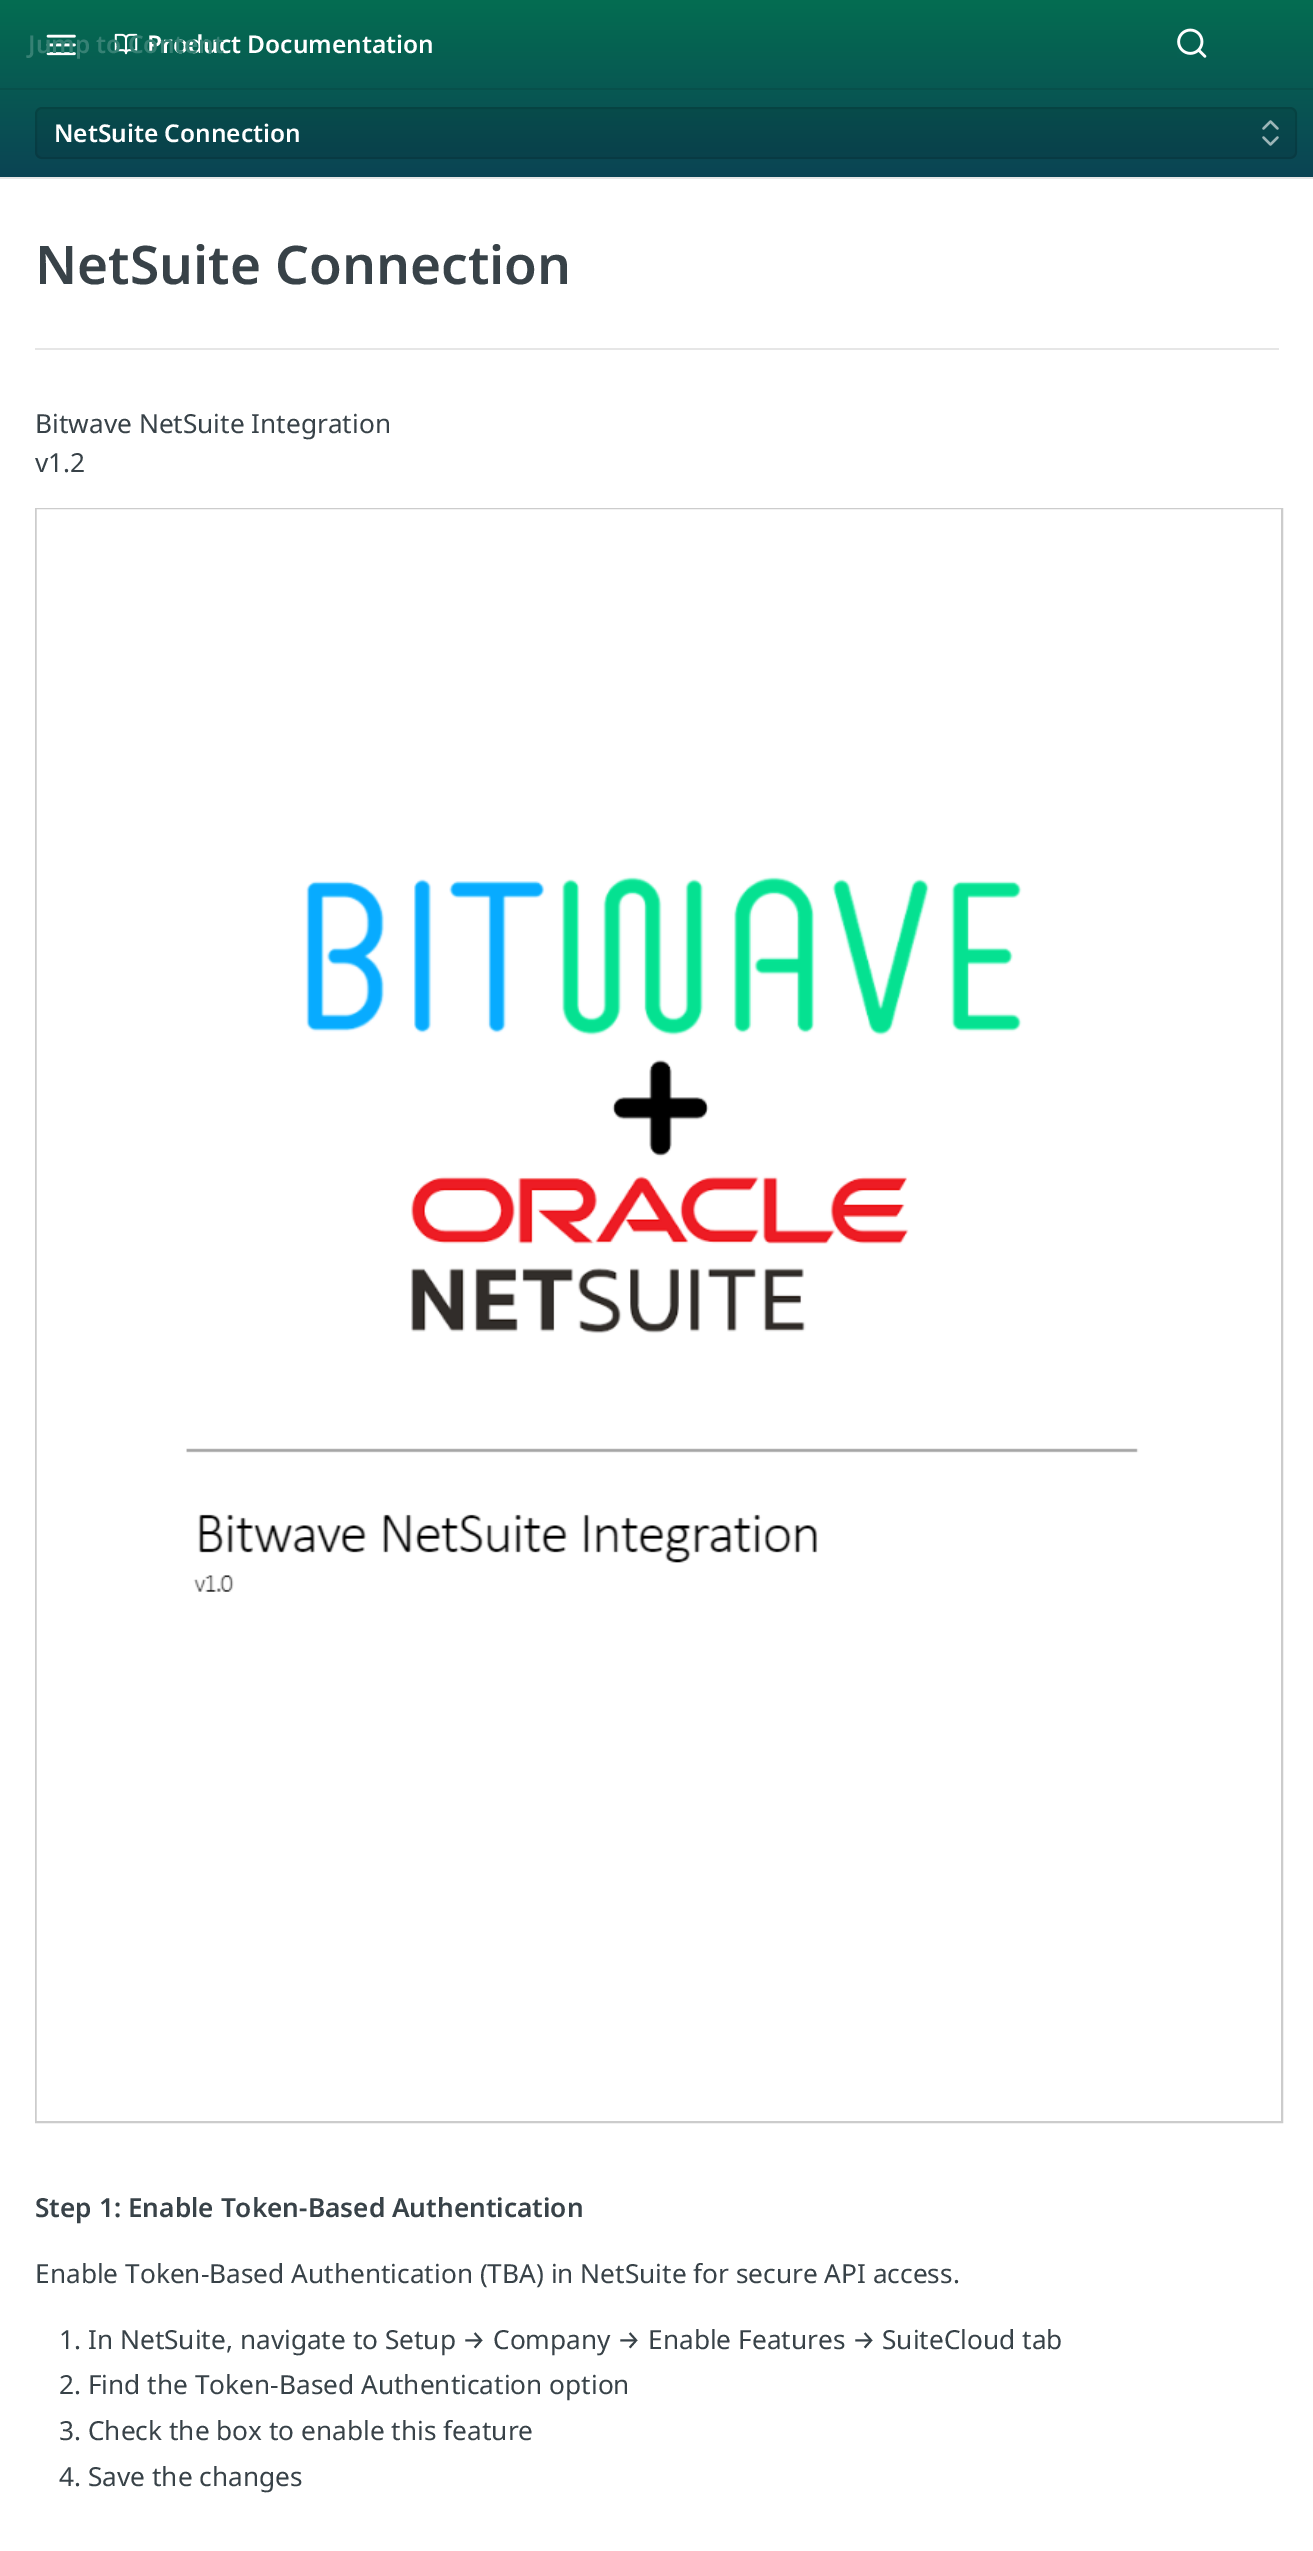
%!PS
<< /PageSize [1313 2551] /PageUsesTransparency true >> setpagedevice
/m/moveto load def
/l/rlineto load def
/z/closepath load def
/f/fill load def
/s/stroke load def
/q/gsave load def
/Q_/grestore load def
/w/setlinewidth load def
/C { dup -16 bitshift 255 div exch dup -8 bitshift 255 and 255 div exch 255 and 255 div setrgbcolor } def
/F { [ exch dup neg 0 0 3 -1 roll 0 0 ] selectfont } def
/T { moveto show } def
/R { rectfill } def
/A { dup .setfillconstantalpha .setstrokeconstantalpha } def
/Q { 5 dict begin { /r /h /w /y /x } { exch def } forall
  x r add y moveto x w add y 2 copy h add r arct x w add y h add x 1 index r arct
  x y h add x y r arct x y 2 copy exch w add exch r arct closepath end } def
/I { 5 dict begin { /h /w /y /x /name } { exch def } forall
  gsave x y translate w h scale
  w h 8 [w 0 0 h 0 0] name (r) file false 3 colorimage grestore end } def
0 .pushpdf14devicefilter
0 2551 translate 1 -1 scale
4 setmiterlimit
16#FFFFFF C
0 0 1313 2551 R
16#E6E6E6 C
0 177 1313 2 R
q 0 0 m 1313 0 l 0 177 l -1313 0 l z clip newpath
<< /ShadingType 2 /ColorSpace /DeviceRGB /Coords [657 0 657 177] /Extend [true true] /Function << /FunctionType 2 /Domain [0 1] /C0 [.016 .427 .318] /C1 [.043 .267 .329] /N 1 >> >> shfill Q_
16#07504B C
0 88 1313 2 R
(1.rgb) 46 34 30 22 I
(2.rgb) 114 33 24 22 I
/NotoSans-SemiBold 24.5 F
16#FFFFFF C
(Product Documentation) 147 53 T
16#368174 C
(Jump to Content) 28 53 T
(3.rgb) 1177 28 30 30 I
0.1 A
16#000000 C
35 107 1262 52 7 Q f
2 w
36 108 1260 50 6 Q s
1 A
16#FFFFFF C
(NetSuite Connection) 54 142 T
0.6 A
2.3 w
1 setlinecap
1 setlinejoin
1263.5 137.5 m 7 7 l 7 -7 l 1277.5 128.5 m -7 -7 l -7 7 l s
1 A
16#E6E6E6 C
35 348 1244 2 R
/NotoSans-SemiBold 53.25 F
16#384248 C
(NetSuite Connection) 35 284 T
/NotoSans-Regular 26.25 F
(Bitwave NetSuite Integration) 35 433 T
(v1.2) 35 472 T
16#CCCCCC C
2 w
0 setlinecap
0 setlinejoin
36 509 1246 1613 rectstroke
(4.rgb) 36 509 1245 1612 I
/NotoSans-SemiBold 26.25 F
16#384248 C
(Step 1: Enable Token-Based Authentication) 35 2217 T
/NotoSans-Regular 26.25 F
(Enable Token-Based Authentication \(TBA\) in NetSuite for secure API access.) 35 2283 T
(1. In NetSuite, navigate to Setup) 59 2349 T
/FiraSans-Regular 26.25 F
(→) 462 2349 T
/NotoSans-Regular 26.25 F
(Company) 493 2349 T
/FiraSans-Regular 26.25 F
(→) 617 2349 T
/NotoSans-Regular 26.25 F
(Enable Features) 648 2349 T
/FiraSans-Regular 26.25 F
(→) 852 2349 T
/NotoSans-Regular 26.25 F
(SuiteCloud tab) 882 2349 T
(2. Find the Token-Based Authentication option) 59 2394 T
(3. Check the box to enable this feature) 59 2440 T
(4. Save the changes) 59 2486 T
.poppdf14devicefilter showpage
